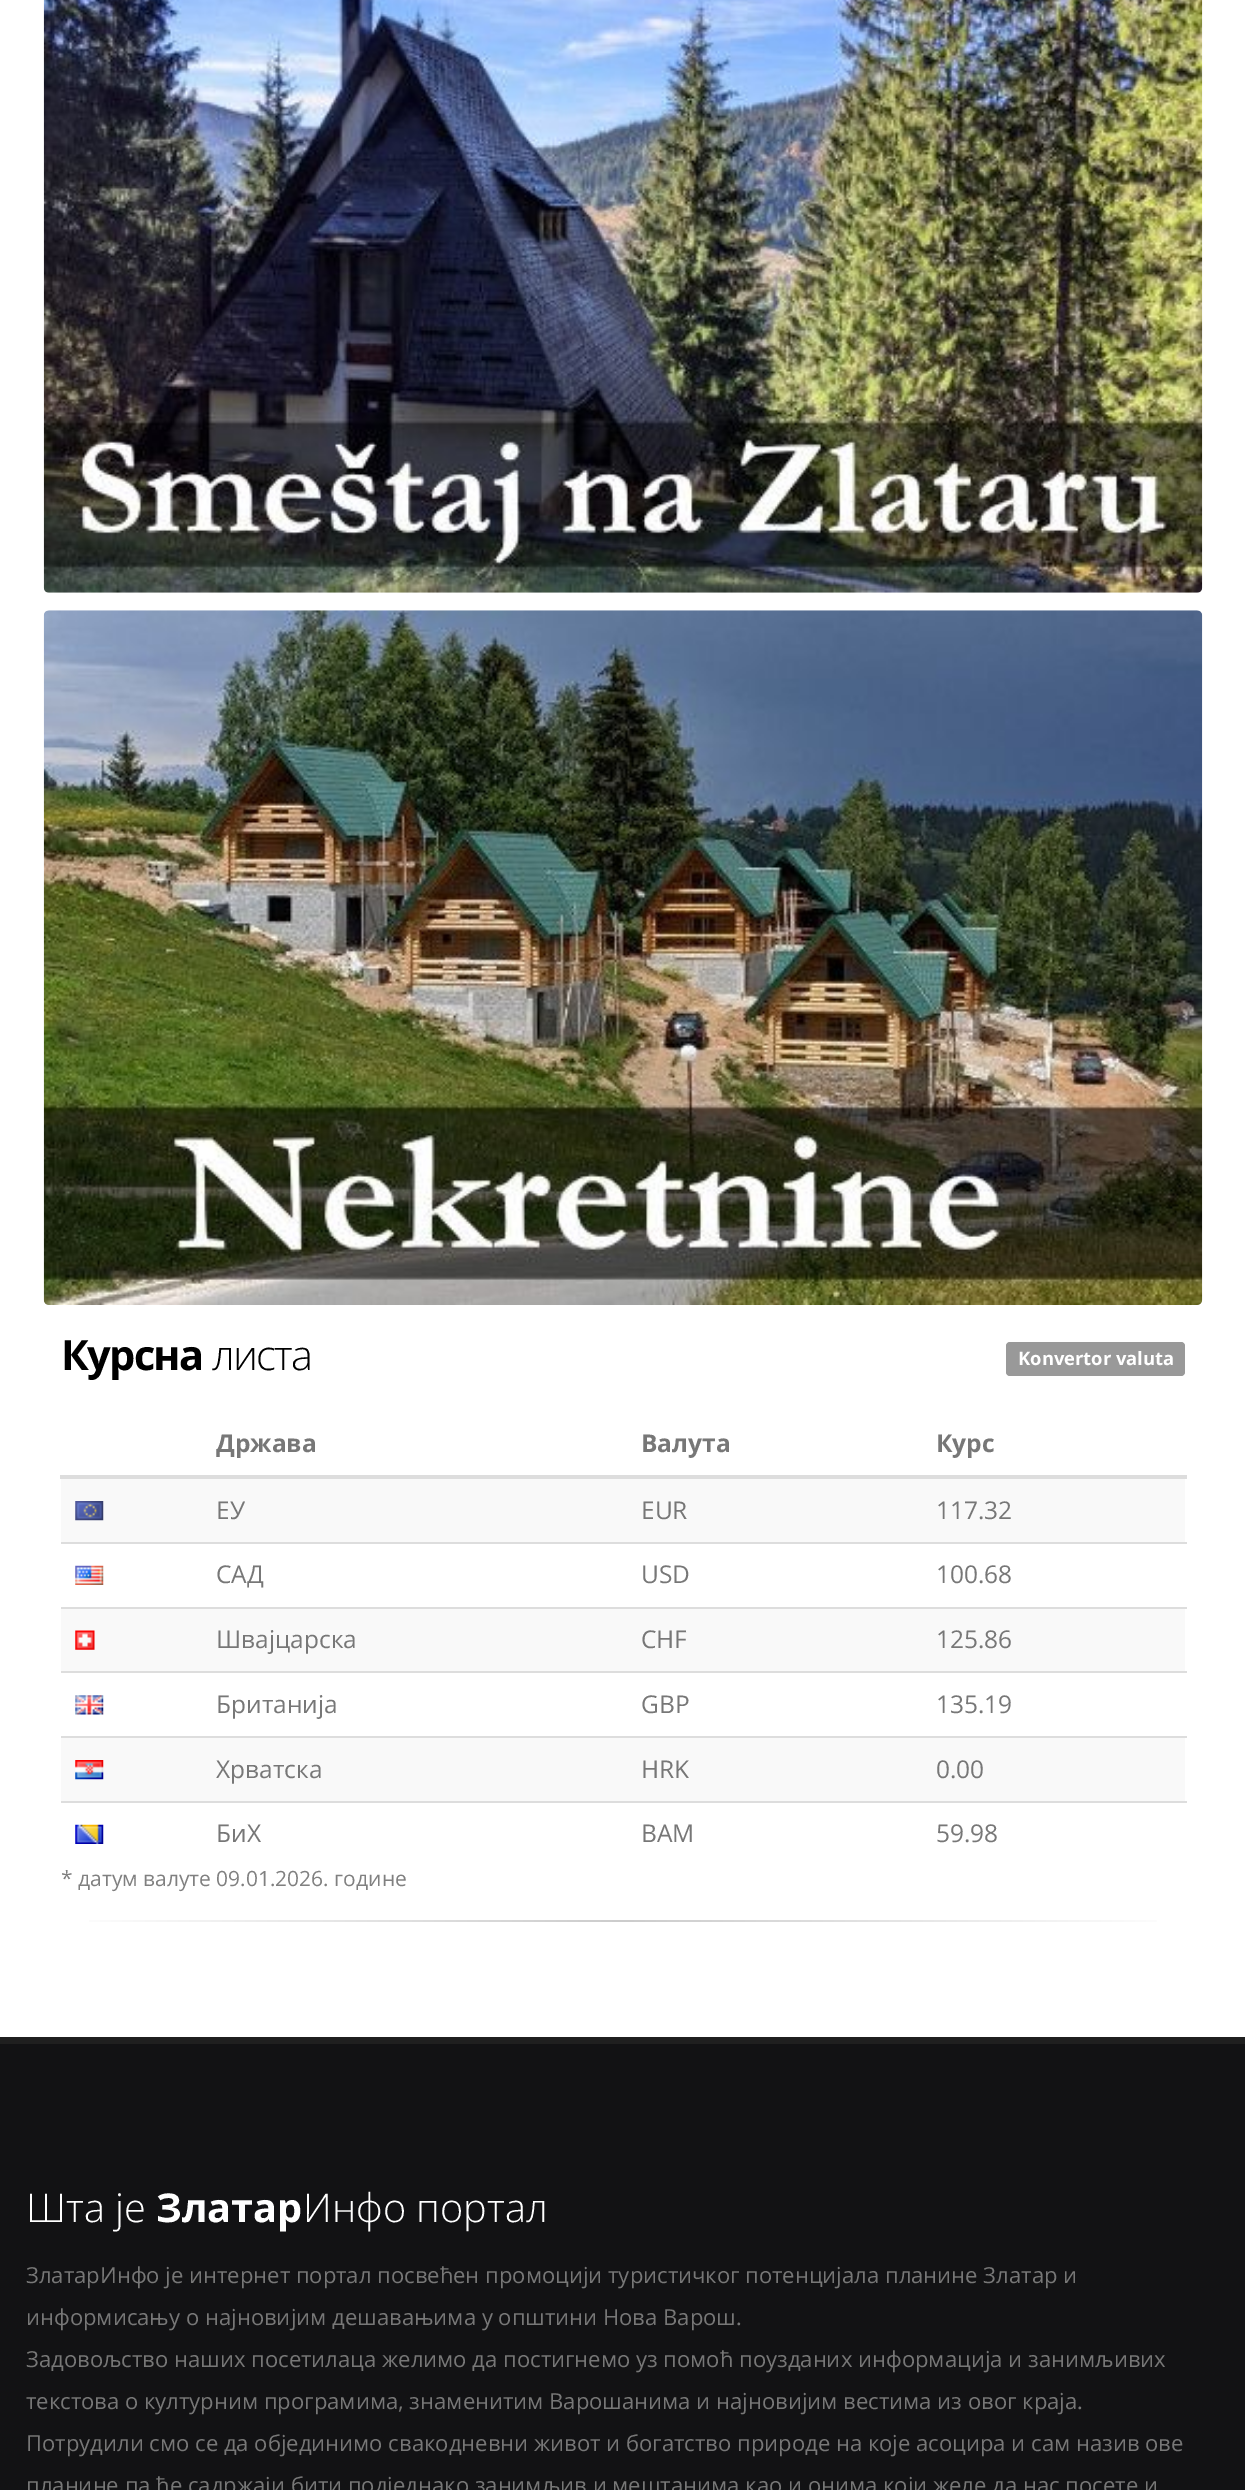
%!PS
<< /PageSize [1245 2490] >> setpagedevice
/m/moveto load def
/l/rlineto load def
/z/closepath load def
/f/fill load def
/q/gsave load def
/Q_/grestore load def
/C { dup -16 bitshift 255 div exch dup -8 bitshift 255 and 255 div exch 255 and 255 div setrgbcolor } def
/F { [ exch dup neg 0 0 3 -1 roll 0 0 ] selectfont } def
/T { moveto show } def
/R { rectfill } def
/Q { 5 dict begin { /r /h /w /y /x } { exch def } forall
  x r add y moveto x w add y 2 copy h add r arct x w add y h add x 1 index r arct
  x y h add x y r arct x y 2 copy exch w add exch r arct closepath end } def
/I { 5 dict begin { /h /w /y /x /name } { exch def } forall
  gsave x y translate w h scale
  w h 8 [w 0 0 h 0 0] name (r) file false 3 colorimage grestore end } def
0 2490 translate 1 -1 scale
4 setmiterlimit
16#FFFFFF C
0 0 1245 2490 R
(1.rgb) 43 0 1160 593 I
(2.rgb) 43 610 1160 695 I
/OpenSans-Bold 41.5 F
16#000000 C
61 1370 m -1.75 0 (Курсна) ashow
/OpenSans-Light 41.5 F
212 1370 m -1.75 0 (листа) ashow
16#999999 C
1006 1342 179 34 4 Q f
/OpenSans-Bold 18.4 F
16#FFFFFF C
(Konvertor valuta) 1018 1365 T
/OpenSans-Bold 24.5 F
16#777777 C
(Држава) 216 1452 T
(Валута) 641 1452 T
16#DDDDDD C
60 1475 1127 4 R
16#777777 C
(Курс) 936 1452 T
16#F9F9F9 C
61 1479 1124 63 R
(3.rgb) 75 1501 29 20 I
/OpenSans-Regular 24.5 F
16#777777 C
(ЕУ) 216 1519 T
(EUR) 641 1519 T
(117.32) 936 1519 T
(4.rgb) 75 1565 29 20 I
(САД) 216 1583 T
(USD) 641 1583 T
16#DDDDDD C
61 1542 1126 2 R
16#777777 C
(100.68) 936 1583 T
16#F9F9F9 C
61 1609 1124 62 R
(5.rgb) 75 1630 20 20 I
16#777777 C
(Швајцарска) 216 1648 T
(CHF) 641 1648 T
16#DDDDDD C
61 1607 1126 2 R
16#777777 C
(125.86) 936 1648 T
(6.rgb) 75 1695 29 20 I
(Британија) 216 1713 T
(GBP) 641 1713 T
16#DDDDDD C
61 1671 1126 2 R
16#777777 C
(135.19) 936 1713 T
16#F9F9F9 C
61 1738 1124 63 R
(7.rgb) 75 1760 29 20 I
16#777777 C
(Хрватска) 216 1778 T
(HRK) 641 1778 T
16#DDDDDD C
61 1736 1126 2 R
16#777777 C
(0.00) 936 1778 T
(8.rgb) 75 1824 29 20 I
(БиХ) 216 1842 T
(BAM) 641 1842 T
16#DDDDDD C
61 1801 1126 2 R
16#777777 C
(59.98) 936 1842 T
/OpenSans-Regular 21 F
16#808080 C
(* датум валуте 09.01.2026. године) 61 1886 T
q 89 1920 m 1068 0 l 0 2 l -1068 0 l z clip newpath
<< /ShadingType 2 /ColorSpace /DeviceRGB /Coords [61 1921 1185 1921] /Extend [true true] /Function << /FunctionType 3 /Domain [0 1] /Functions [<< /FunctionType 2 /Domain [0 1] /C0 [1 1 1] /C1 [.8 .8 .8] /N 1 >> << /FunctionType 2 /Domain [0 1] /C0 [.8 .8 .8] /C1 [1 1 1] /N 1 >>] /Bounds [.5] /Encode [0 1 0 1] >> >> shfill Q_
16#121214 C
0 2044 1245 446 R
16#1F1F1F C
0 2037 1245 7 R
/OpenSans-Light 39.75 F
16#FFFFFF C
(Шта је) 26 2222 T
/OpenSans-Bold 39.75 F
(Златар) 156 2222 T
/OpenSans-Light 39.75 F
(Инфо портал) 303 2222 T
/OpenSans-Regular 22.05 F
16#777777 C
(ЗлатарИнфо је интернет портал посвећен промоцији туристичког) 26 2283 T
(потенцијала планине Златар и) 745 2283 T
(информисању о најновијим дешавањима у општини Нова Варош.) 26 2325 T
(Задовољство наших посетилаца желимо да постигнемо уз помоћ поузданих) 26 2367 T
(информација и занимљивих) 858 2367 T
(текстова о културним програмима, знаменитим Варошанима и најновијим вестима из овог краја.) 26 2409 T
(Потрудили смо се да објединимо свакодневни живот и богатство природе на које асоцира и сам назив ове) 26 2451 T
(планине па ће садржаји бити подједнако занимљив и мештанима као и онима који желе да нас посете и) 26 2493 T
showpage
